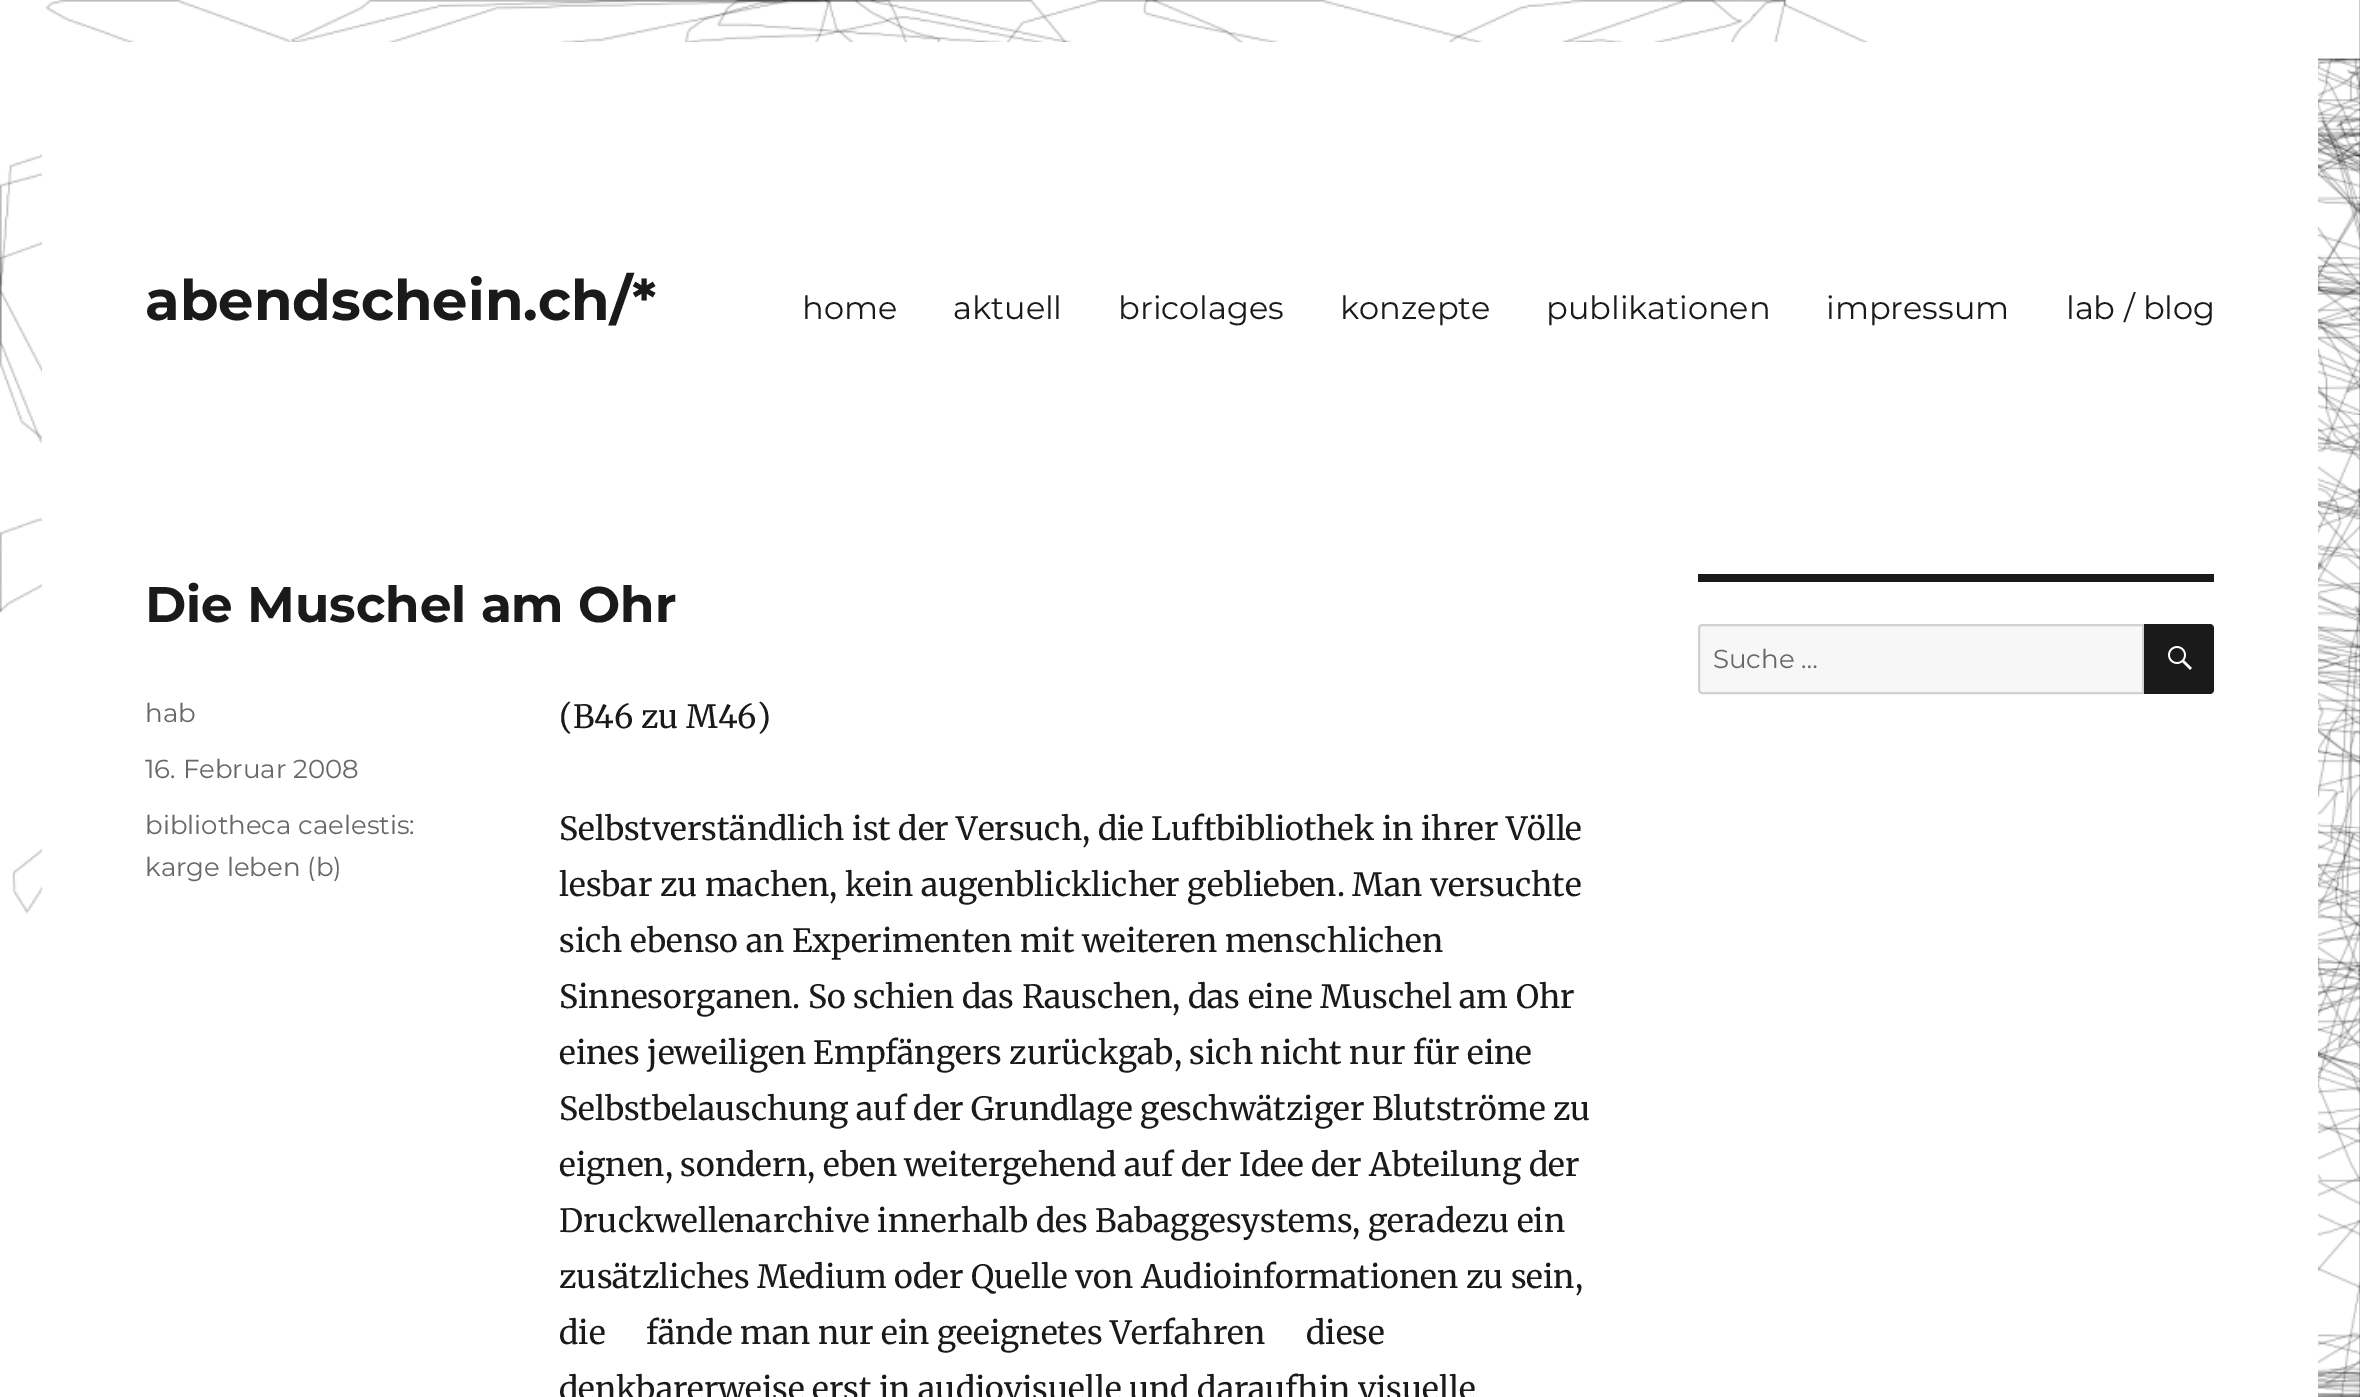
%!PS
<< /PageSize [2360 1397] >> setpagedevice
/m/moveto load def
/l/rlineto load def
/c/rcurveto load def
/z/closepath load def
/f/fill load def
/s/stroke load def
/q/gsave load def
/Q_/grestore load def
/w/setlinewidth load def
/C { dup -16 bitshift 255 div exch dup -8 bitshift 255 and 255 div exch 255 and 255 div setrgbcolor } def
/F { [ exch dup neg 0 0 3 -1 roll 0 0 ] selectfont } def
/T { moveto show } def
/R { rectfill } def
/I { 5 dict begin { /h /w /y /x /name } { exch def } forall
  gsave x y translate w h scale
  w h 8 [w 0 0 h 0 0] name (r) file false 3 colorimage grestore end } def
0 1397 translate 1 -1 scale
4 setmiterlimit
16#FFFFFF C
0 0 2360 1397 R
(1.rgb) 0 0 2360 1397 I
42 42 2276 1355 R
/Montserrat-Bold 56 F
16#1A1A1A C
(abendschein.ch/*) 145 320 T
/Montserrat-Regular 32 F
(home) 802 319 T
(aktuell) 953 319 T
(bricolages) 1118 319 T
(konzepte) 1340 319 T
(publikationen) 1546 319 T
(impressum) 1826 319 T
(lab / blog) 2066 319 T
/Montserrat-Bold 50 F
(Die Muschel am Ohr) 145 622 T
/Montserrat-Regular 26 F
16#686868 C
(hab) 145 722 T
(16. Februar 2008) 145 778 T
(bibliotheca caelestis:) 145 834 T
(karge leben \(b\)) 145 876 T
/Merriweather-Regular 32 F
16#1A1A1A C
(\(B46 zu M46\)) 559 728 T
(Selbstverständlich ist der Versuch, die Luftbibliothek in ihrer Völle) 559 840 T
(lesbar zu machen, kein augenblicklicher geblieben. Man versuchte) 559 896 T
(sich ebenso an Experimenten mit weiteren menschlichen) 559 952 T
(Sinnesorganen. So schien das Rauschen, das eine Muschel am Ohr) 559 1008 T
(eines jeweiligen Empfängers zurückgab, sich nicht nur für eine) 559 1064 T
(Selbstbelauschung auf der Grundlage geschwätziger Blutströme zu) 559 1120 T
(eignen, sondern, eben weitergehend auf der Idee der Abteilung der) 559 1176 T
(Druckwellenarchive innerhalb des Babaggesystems, geradezu ein) 559 1232 T
(zusätzliches Medium oder Quelle von Audioinformationen zu sein,) 559 1288 T
(die) 559 1344 T
(fände man nur ein geeignetes Verfahren) 646 1344 T
(diese) 1306 1344 T
(denkbarerweise erst in audiovisuelle und daraufhin visuelle) 559 1400 T
1698 574 516 8 R
16#F7F7F7 C
1702 625 m 441 0 l 0 68 l -441 0 l -1.5 0 -3 -1.5 -3 -3 c 0 -62 l 0 -1.5 1.5 -3 3 -3 c z q f Q_
16#D1D1D1 C
2 w
s
/Montserrat-Regular 26 F
16#686868 C
(Suche …) 1713 668 T
16#1A1A1A C
2144 624 m 66 0 l 2 0 4 2 4 4 c 0 62 l 0 2 -2 4 -4 4 c -66 0 l z f
(2.rgb) 2168 646 24 24 I
showpage
